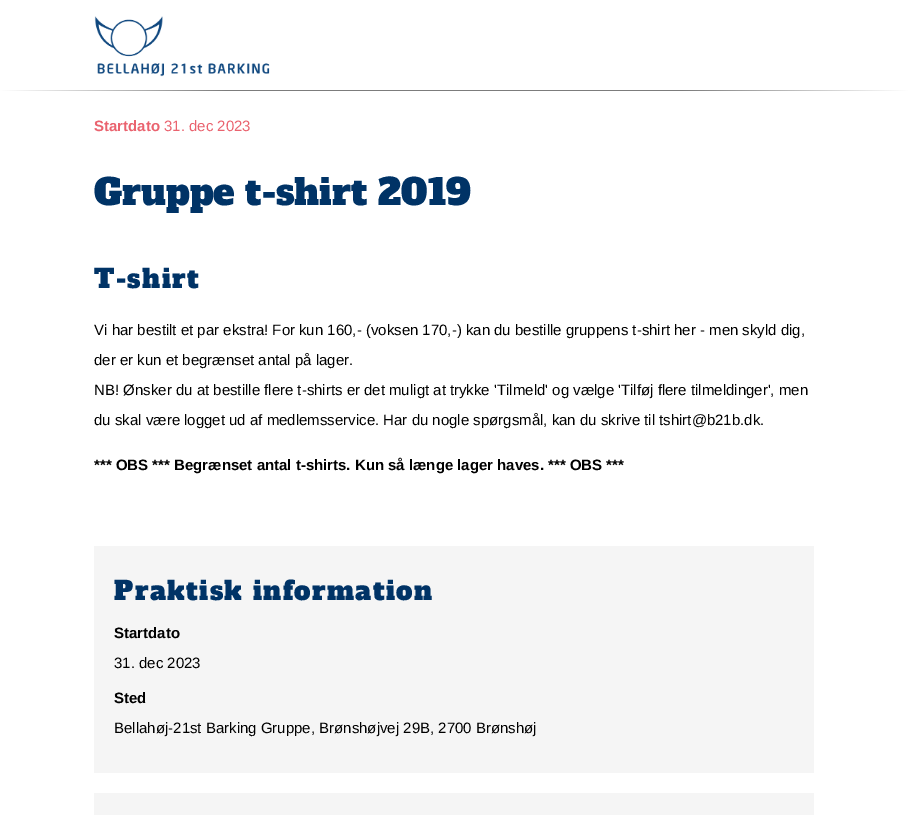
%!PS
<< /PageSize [908 815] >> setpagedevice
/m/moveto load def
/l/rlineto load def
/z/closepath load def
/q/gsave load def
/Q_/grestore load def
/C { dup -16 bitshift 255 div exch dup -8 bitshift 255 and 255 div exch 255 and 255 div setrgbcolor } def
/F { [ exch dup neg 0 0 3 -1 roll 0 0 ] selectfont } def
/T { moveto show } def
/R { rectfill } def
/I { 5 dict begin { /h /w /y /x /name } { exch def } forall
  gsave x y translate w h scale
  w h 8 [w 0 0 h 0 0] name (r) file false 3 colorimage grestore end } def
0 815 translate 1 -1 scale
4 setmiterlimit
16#FFFFFF C
0 0 908 815 R
(1.rgb) 94 16 176 61 I
q 0 90 m 908 0 l 0 1 l -908 0 l z clip newpath
<< /ShadingType 2 /ColorSpace /DeviceRGB /Coords [908 91 0 90] /Extend [true true] /Function << /FunctionType 3 /Domain [0 1] /Functions [<< /FunctionType 2 /Domain [0 1] /C0 [1 1 1] /C1 [.486 .486 .486] /N 1 >> << /FunctionType 2 /Domain [0 1] /C0 [.486 .486 .486] /C1 [.486 .486 .486] /N 1 >> << /FunctionType 2 /Domain [0 1] /C0 [.486 .486 .486] /C1 [1 1 1] /N 1 >>] /Bounds [.25 .75] /Encode [0 1 0 1 0 1] >> >> shfill Q_
/LiberationSans-Bold 15 F
16#EA636F C
(Startdato) 94 131 T
/LiberationSans-Regular 15 F
(31. dec 2023) 164 131 T
/AlfaSlabOne-Regular 36 F
16#003366 C
(Gruppe t-shirt 2019) 94 205 T
/AlfaSlabOne-Regular 26 F
94 288 m 1.4 0 (T-shirt) ashow
/LiberationSans-Regular 15 F
16#000000 C
(Vi har bestilt et par ekstra! For kun 160,- \(voksen 170,-\) kan du bestille gruppens t-shirt her - men skyld dig,) 94 335 T
(der er kun et begrænset antal på lager.) 94 365 T
(NB! Ønsker du at bestille flere t-shirts er det muligt at trykke 'Tilmeld' og vælge 'Tilføj flere tilmeldinger', men) 94 395 T
(du skal være logget ud af medlemsservice. Har du nogle spørgsmål, kan du skrive til tshirt@b21b.dk.) 94 425 T
/LiberationSans-Bold 15 F
(*** OBS *** Begrænset antal t-shirts. Kun så længe lager haves. *** OBS ***) 94 470 T
16#F5F5F5 C
94 546 720 227 R
/AlfaSlabOne-Regular 26 F
16#003366 C
114 600 m 1.4 0 (Praktisk information) ashow
/LiberationSans-Bold 15 F
16#000000 C
(Startdato) 114 638 T
/LiberationSans-Regular 15 F
(31. dec 2023) 114 668 T
/LiberationSans-Bold 15 F
(Sted) 114 703 T
/LiberationSans-Regular 15 F
(Bellahøj-21st Barking Gruppe, Brønshøjvej 29B, 2700 Brønshøj) 114 733 T
16#F5F5F5 C
94 793 720 22 R
showpage
